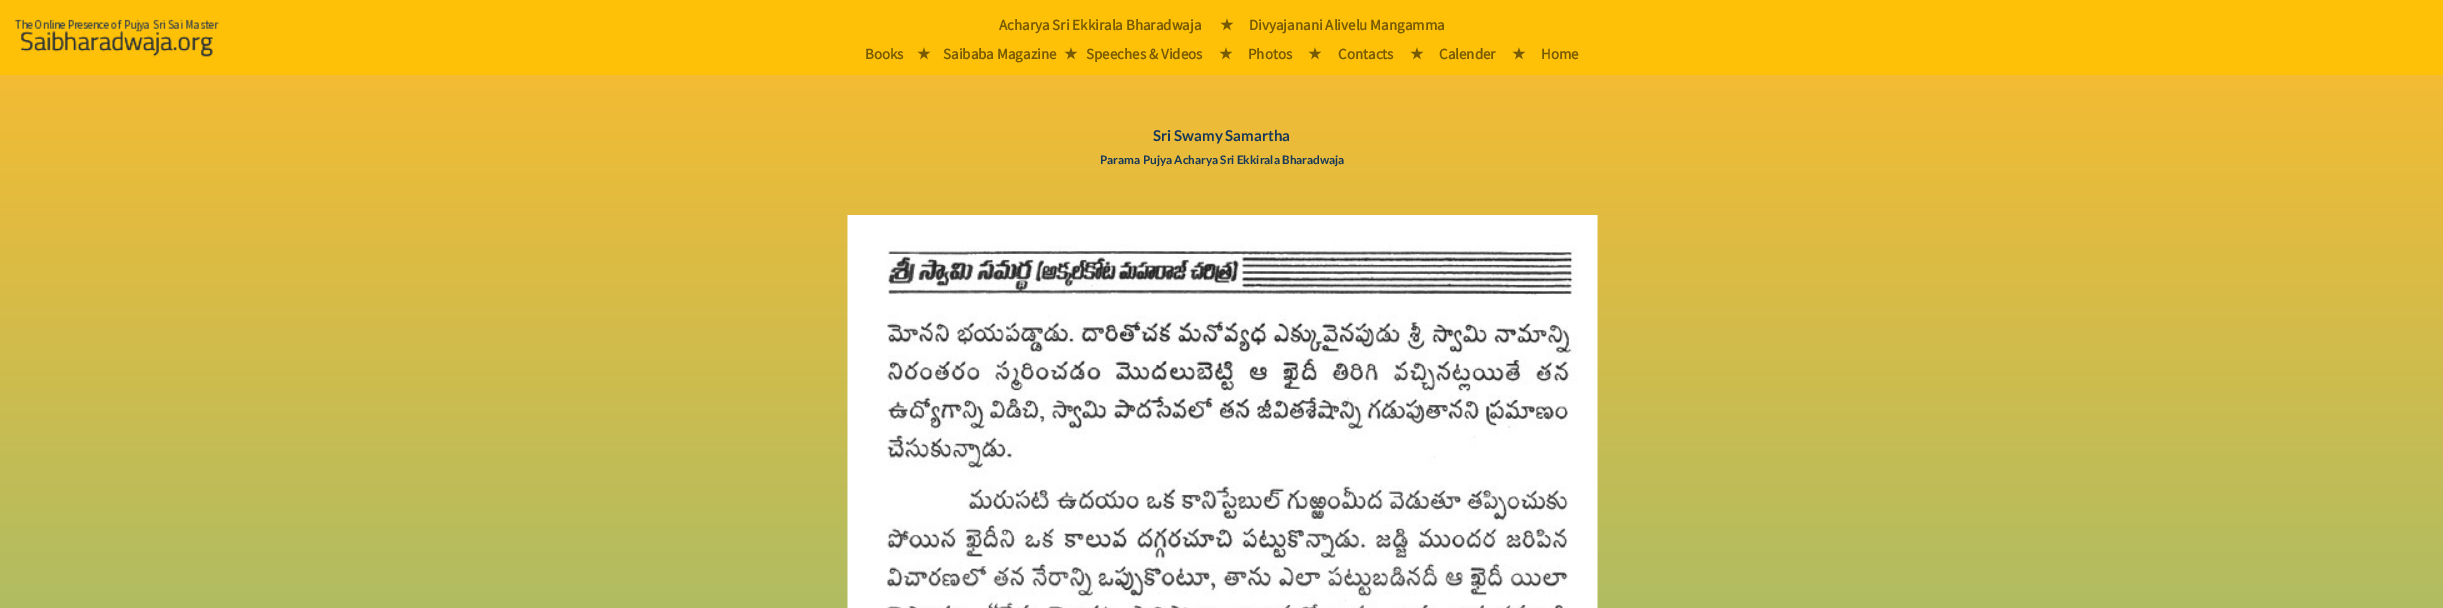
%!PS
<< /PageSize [2443 608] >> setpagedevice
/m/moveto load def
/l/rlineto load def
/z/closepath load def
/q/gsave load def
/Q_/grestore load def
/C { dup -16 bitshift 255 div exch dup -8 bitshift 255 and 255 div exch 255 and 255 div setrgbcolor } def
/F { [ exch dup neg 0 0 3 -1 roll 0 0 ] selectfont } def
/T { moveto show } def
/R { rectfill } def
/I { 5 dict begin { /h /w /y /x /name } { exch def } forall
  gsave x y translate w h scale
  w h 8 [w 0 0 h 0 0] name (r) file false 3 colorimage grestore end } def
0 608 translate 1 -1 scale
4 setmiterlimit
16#FFFFFF C
0 0 2443 608 R
q 0 75 m 2443 0 l 0 533 l -2443 0 l z clip newpath
<< /ShadingType 2 /ColorSpace /DeviceRGB /Coords [1222 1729 1222 0] /Extend [true true] /Function << /FunctionType 2 /Domain [0 1] /C0 [.133 .757 .765] /C1 [.992 .733 .176] /N 1 >> >> shfill Q_
16#FFC107 C
0 0 2443 75 R
(1.rgb) 14 19 205 38 I
/SourceSansPro-Bold 15 F
16#775A04 C
(Acharya Sri Ekkirala Bharadwaja) 999 30 T
/DejaVuSans-Bold 15 F
(★) 1220 30 T
/SourceSansPro-Bold 15 F
(Divyajanani Alivelu Mangamma) 1249 30 T
(Books) 865 59 T
/DejaVuSans-Bold 15 F
(★) 917 59 T
/SourceSansPro-Bold 15 F
(Saibaba Magazine) 943 59 T
/DejaVuSans-Bold 15 F
(★) 1064 59 T
/SourceSansPro-Bold 15 F
(Speeches & Videos) 1086 59 T
/DejaVuSans-Bold 15 F
(★) 1219 59 T
/SourceSansPro-Bold 15 F
(Photos) 1248 59 T
/DejaVuSans-Bold 15 F
(★) 1308 59 T
/SourceSansPro-Bold 15 F
(Contacts) 1338 59 T
/DejaVuSans-Bold 15 F
(★) 1410 59 T
/SourceSansPro-Bold 15 F
(Calender) 1439 59 T
/DejaVuSans-Bold 15 F
(★) 1512 59 T
/SourceSansPro-Bold 15 F
(Home) 1541 59 T
/Lato-Bold 15 F
16#173859 C
(Sri Swamy Samartha) 1153 141 T
/Lato-Bold 11.7 F
(Parama Pujya Acharya Sri Ekkirala Bharadwaja) 1100 164 T
(2.rgb) 847 215 751 393 I
showpage
